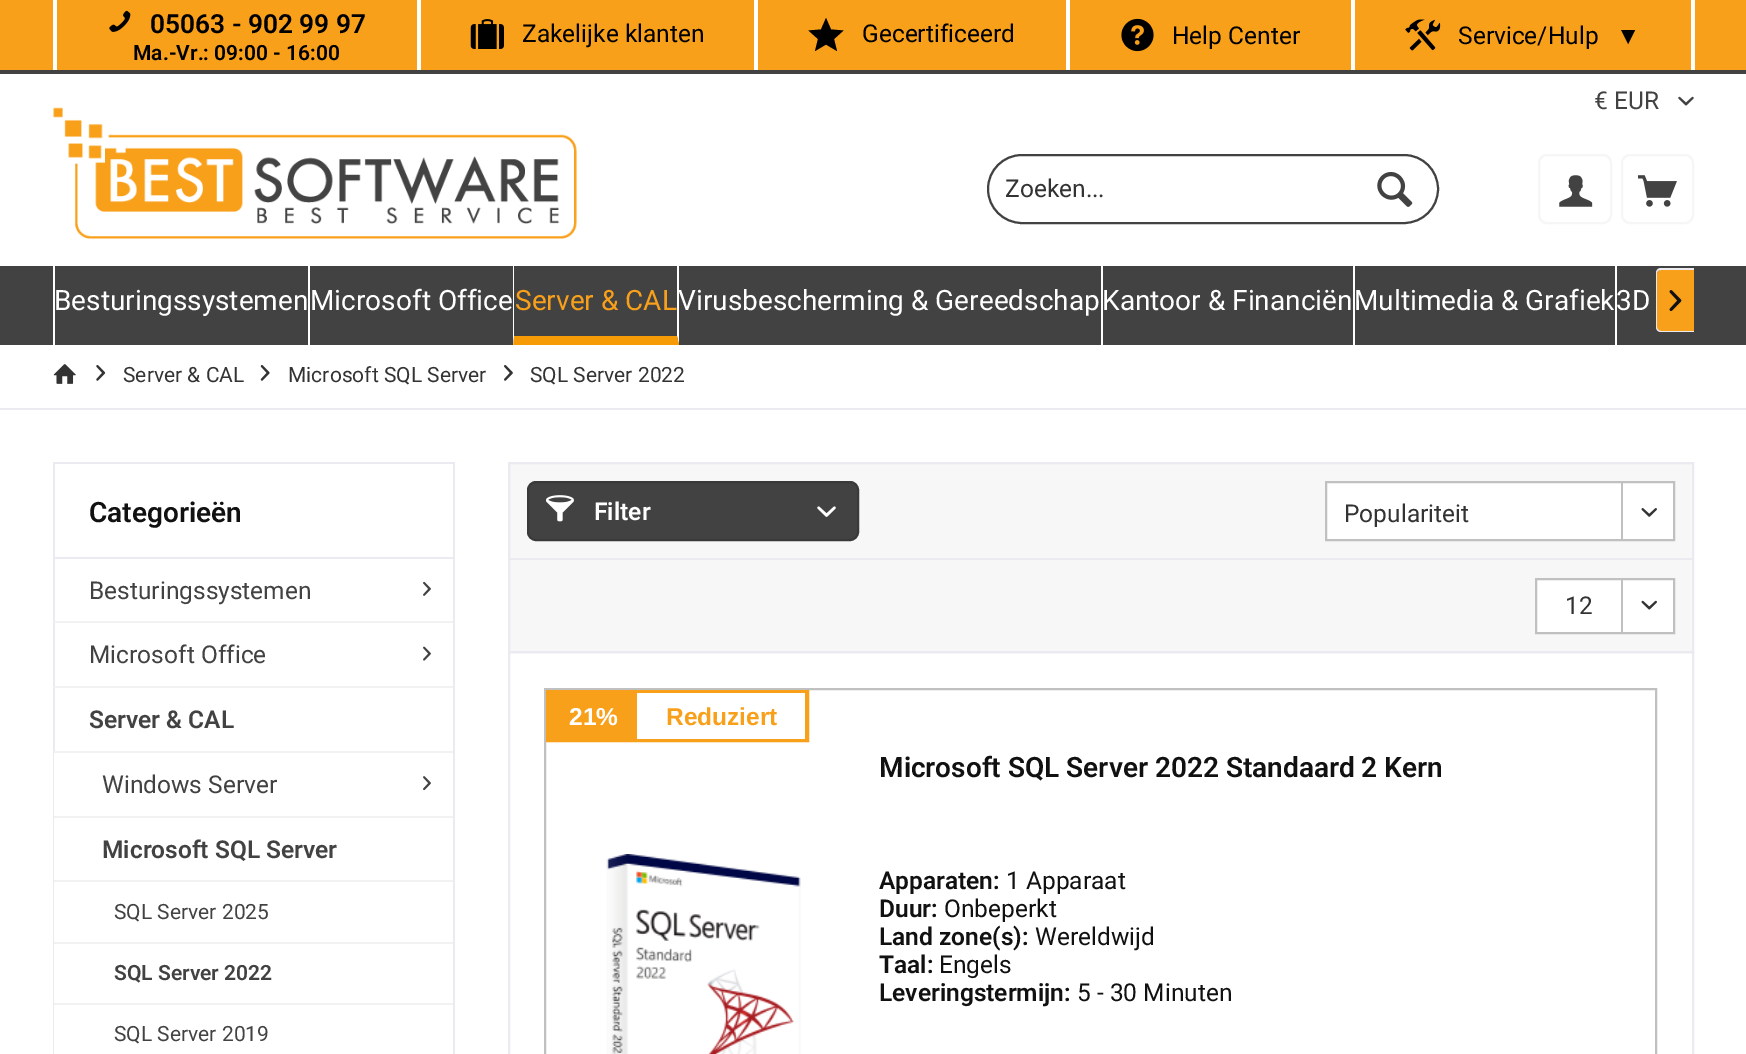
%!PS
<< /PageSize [1746 1054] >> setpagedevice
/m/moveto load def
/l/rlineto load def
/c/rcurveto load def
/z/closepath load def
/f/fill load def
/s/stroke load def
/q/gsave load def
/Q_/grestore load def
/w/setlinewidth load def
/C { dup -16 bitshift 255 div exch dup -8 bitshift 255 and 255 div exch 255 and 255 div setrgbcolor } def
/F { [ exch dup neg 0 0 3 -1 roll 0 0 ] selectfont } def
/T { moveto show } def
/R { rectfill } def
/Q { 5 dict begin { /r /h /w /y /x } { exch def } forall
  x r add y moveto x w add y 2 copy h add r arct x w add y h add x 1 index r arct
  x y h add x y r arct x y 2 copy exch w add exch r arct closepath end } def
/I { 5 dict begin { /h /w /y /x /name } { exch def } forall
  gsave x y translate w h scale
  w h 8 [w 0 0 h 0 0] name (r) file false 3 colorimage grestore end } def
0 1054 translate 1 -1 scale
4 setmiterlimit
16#FFFFFF C
0 0 1746 1054 R
16#F9A01B C
0 0 1746 70 R
16#424242 C
0 70 1746 4 R
16#FFFFFF C
417 0 4 70 R
53 0 4 70 R
(1.rgb) 109 10 22 22 I
/Roboto-SemiBold 26.25 F
16#000000 C
(05063 - 902 99 97) 150 33 T
/Roboto-SemiBold 21 F
(Ma.-Vr.: 09:00 - 16:00) 133 60 T
16#FFFFFF C
754 0 4 70 R
(2.rgb) 470 19 34 30 I
/Roboto-Regular 24.5 F
16#000000 C
(Zakelijke klanten) 522 42 T
16#FFFFFF C
1066 0 4 70 R
16#000000 C
826 18 m -5 11.5 l -12.5 1 l 9.5 8.5 l -3 12 l 11 -6.5 l 11 6.5 l -3 -12 l 9.5 -8.5 l -12.5 -1 l z f
(Gecertificeerd) 862 42 T
16#FFFFFF C
1351 0 4 70 R
(3.rgb) 1121 18 33 34 I
16#000000 C
(Help Center) 1172 44 T
16#FFFFFF C
1691 0 4 70 R
(4.rgb) 1405 19 36 32 I
16#000000 C
(Service/Hulp) 1458 44 T
/LiberationSerif-Regular 24.5 F
(▼) 1616 44 T
/Roboto-Regular 24.5 F
16#424242 C
(€ EUR) 1594 109 T
(5.rgb) 1678 96 16 10 I
(6.rgb) 53 107 524 132 I
2 w
988 155 450 68 34 Q s
16#333333 C
(Zoeken...) 1005 197 T
(7.rgb) 1377 171 36 36 I
16#F6F6F6 C
1539 155 72 68 8 Q s
(8.rgb) 1559 175 34 32 I
1622 155 71 68 8 Q s
(9.rgb) 1638 175 39 32 I
16#424242 C
0 266 1746 79 R
16#FFFFFF C
308 266 2 79 R
53 266 2 79 R
/Roboto-Regular 28 F
(Besturingssystemen) 54 310 T
(Microsoft Office) 310 310 T
679 266 m 0 79 l -2 -9 l 0 -70 l z f
16#F69B06 C
679 345 m -166 0 l 1 -9 l 163 0 l z f
16#FFFFFF C
513 345 m 0 -79 l 1 0 l 0 70 l z f
16#F9A01B C
(Server & CAL) 515 310 T
16#FFFFFF C
1101 266 2 79 R
(Virusbescherming & Gereedschap) 678 310 T
1353 266 2 79 R
(Kantoor & Financiën) 1102 310 T
1615 266 2 79 R
(Multimedia & Grafiek) 1354 310 T
(3D) 1616 310 T
16#F9A01B C
1661 270 m 33 0 l 0 61 l -33 0 l -2 0 -4 -2 -4 -4 c 0 -53 l 0 -2 2 -4 4 -4 c z f
16#EAEAF0 C
1661 268 m 33 0 l 0 64 l -33 0 l -3 0 -5 -2 -5 -5 c 0 -54 l 0 -3 2 -5 5 -5 c z 1661 270 m 33 0 l 0 61 l -33 0 l -2 0 -4 -2 -4 -4 c 0 -54 l 0 -2 2 -3 4 -3 c z eofill
(10.rgb) 1669 290 13 21 I
0 408 1746 2 R
(11.rgb) 53 364 23 20 I
(12.rgb) 96 365 10 16 I
/Roboto-Regular 21 F
16#333333 C
(Server & CAL) 123 382 T
(13.rgb) 260 365 10 16 I
(Microsoft SQL Server) 288 382 T
(14.rgb) 504 365 9 16 I
(SQL Server 2022) 530 382 T
16#EAEAF0 C
53 462 402 2 R
453 462 2 96 R
53 462 2 96 R
/Roboto-SemiBold 28 F
16#111111 C
(Categorieën) 89 522 T
16#EAEAF0 C
53 558 2 496 R
54 557 399 2 R
453 558 2 496 R
16#F2F2F2 C
54 621 399 2 R
/Roboto-Regular 24.5 F
16#424242 C
(Besturingssystemen) 89 599 T
(15.rgb) 423 581 8 15 I
16#F2F2F2 C
54 686 399 2 R
16#424242 C
(Microsoft Office) 89 663 T
(16.rgb) 423 646 8 15 I
16#F2F2F2 C
54 751 399 2 R
/Roboto-SemiBold 24.5 F
16#424242 C
(Server & CAL) 89 728 T
16#FFFFFF C
54 753 1 301 R
16#F2F2F2 C
54 816 399 2 R
/Roboto-Regular 24.5 F
16#424242 C
(Windows Server) 102 793 T
(17.rgb) 423 776 8 15 I
16#F2F2F2 C
54 880 399 2 R
/Roboto-SemiBold 24.5 F
16#424242 C
(Microsoft SQL Server) 102 858 T
16#F2F2F2 C
54 942 399 2 R
/Roboto-Regular 21 F
16#424242 C
(SQL Server 2025) 114 919 T
16#F2F2F2 C
54 1003 399 2 R
/Roboto-SemiBold 21 F
16#424242 C
(SQL Server 2022) 114 980 T
/Roboto-Regular 21 F
(SQL Server 2019) 114 1041 T
16#F7F7F7 C
509 463 m 1184 0 l 0 189 l -1184 0 l z q f Q_
16#EAEAF0 C
s
16#424242 C
528 482 330 58 8 Q q f Q_
16#3A3A3A C
s
(18.rgb) 546 495 28 27 I
/Roboto-SemiBold 24.5 F
16#FFFFFF C
(Filter) 594 520 T
(19.rgb) 817 506 19 11 I
1326 482 m 348 0 l 0 58 l -348 0 l z q f Q_
16#C0C0C1 C
s
/Roboto-Regular 24.5 F
16#333333 C
(Populariteit) 1344 522 T
16#C0C0C1 C
1621 483 2 58 R
(20.rgb) 1641 508 16 9 I
16#EAEAF0 C
509 558 1183 2 R
16#FFFFFF C
1536 579 m 138 0 l 0 54 l -138 0 l z q f Q_
16#C0C0C1 C
s
16#333333 C
(12) 1565 614 T
16#C0C0C1 C
1621 579 2 55 R
(21.rgb) 1641 600 16 10 I
16#EAEAF0 C
509 652 1184 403 rectstroke
16#C0C0C1 C
545 689 1111 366 rectstroke
16#F9A01B C
4 w
548 692 259 48 rectstroke
550 694 87 44 R
/LiberationSans-Bold 24.5 F
16#FFFFFF C
(21%) 569 725 T
637 693 168 46 R
16#F9A01B C
(Reduziert) 666 725 T
/Roboto-SemiBold 28 F
16#111111 C
(Microsoft SQL Server 2022 Standaard 2 Kern) 879 777 T
(22.rgb) 606 854 195 200 I
/Roboto-SemiBold 24.5 F
(Apparaten:) 879 889 T
/Roboto-Regular 24.5 F
(1 Apparaat) 1006 889 T
/Roboto-SemiBold 24.5 F
(Duur:) 879 917 T
/Roboto-Regular 24.5 F
(Onbeperkt) 944 917 T
/Roboto-SemiBold 24.5 F
(Land zone\(s\):) 879 945 T
/Roboto-Regular 24.5 F
(Wereldwijd) 1035 945 T
/Roboto-SemiBold 24.5 F
(Taal:) 879 973 T
/Roboto-Regular 24.5 F
(Engels) 939 973 T
/Roboto-SemiBold 24.5 F
(Leveringstermijn:) 879 1001 T
/Roboto-Regular 24.5 F
(5 - 30 Minuten) 1077 1001 T
showpage
